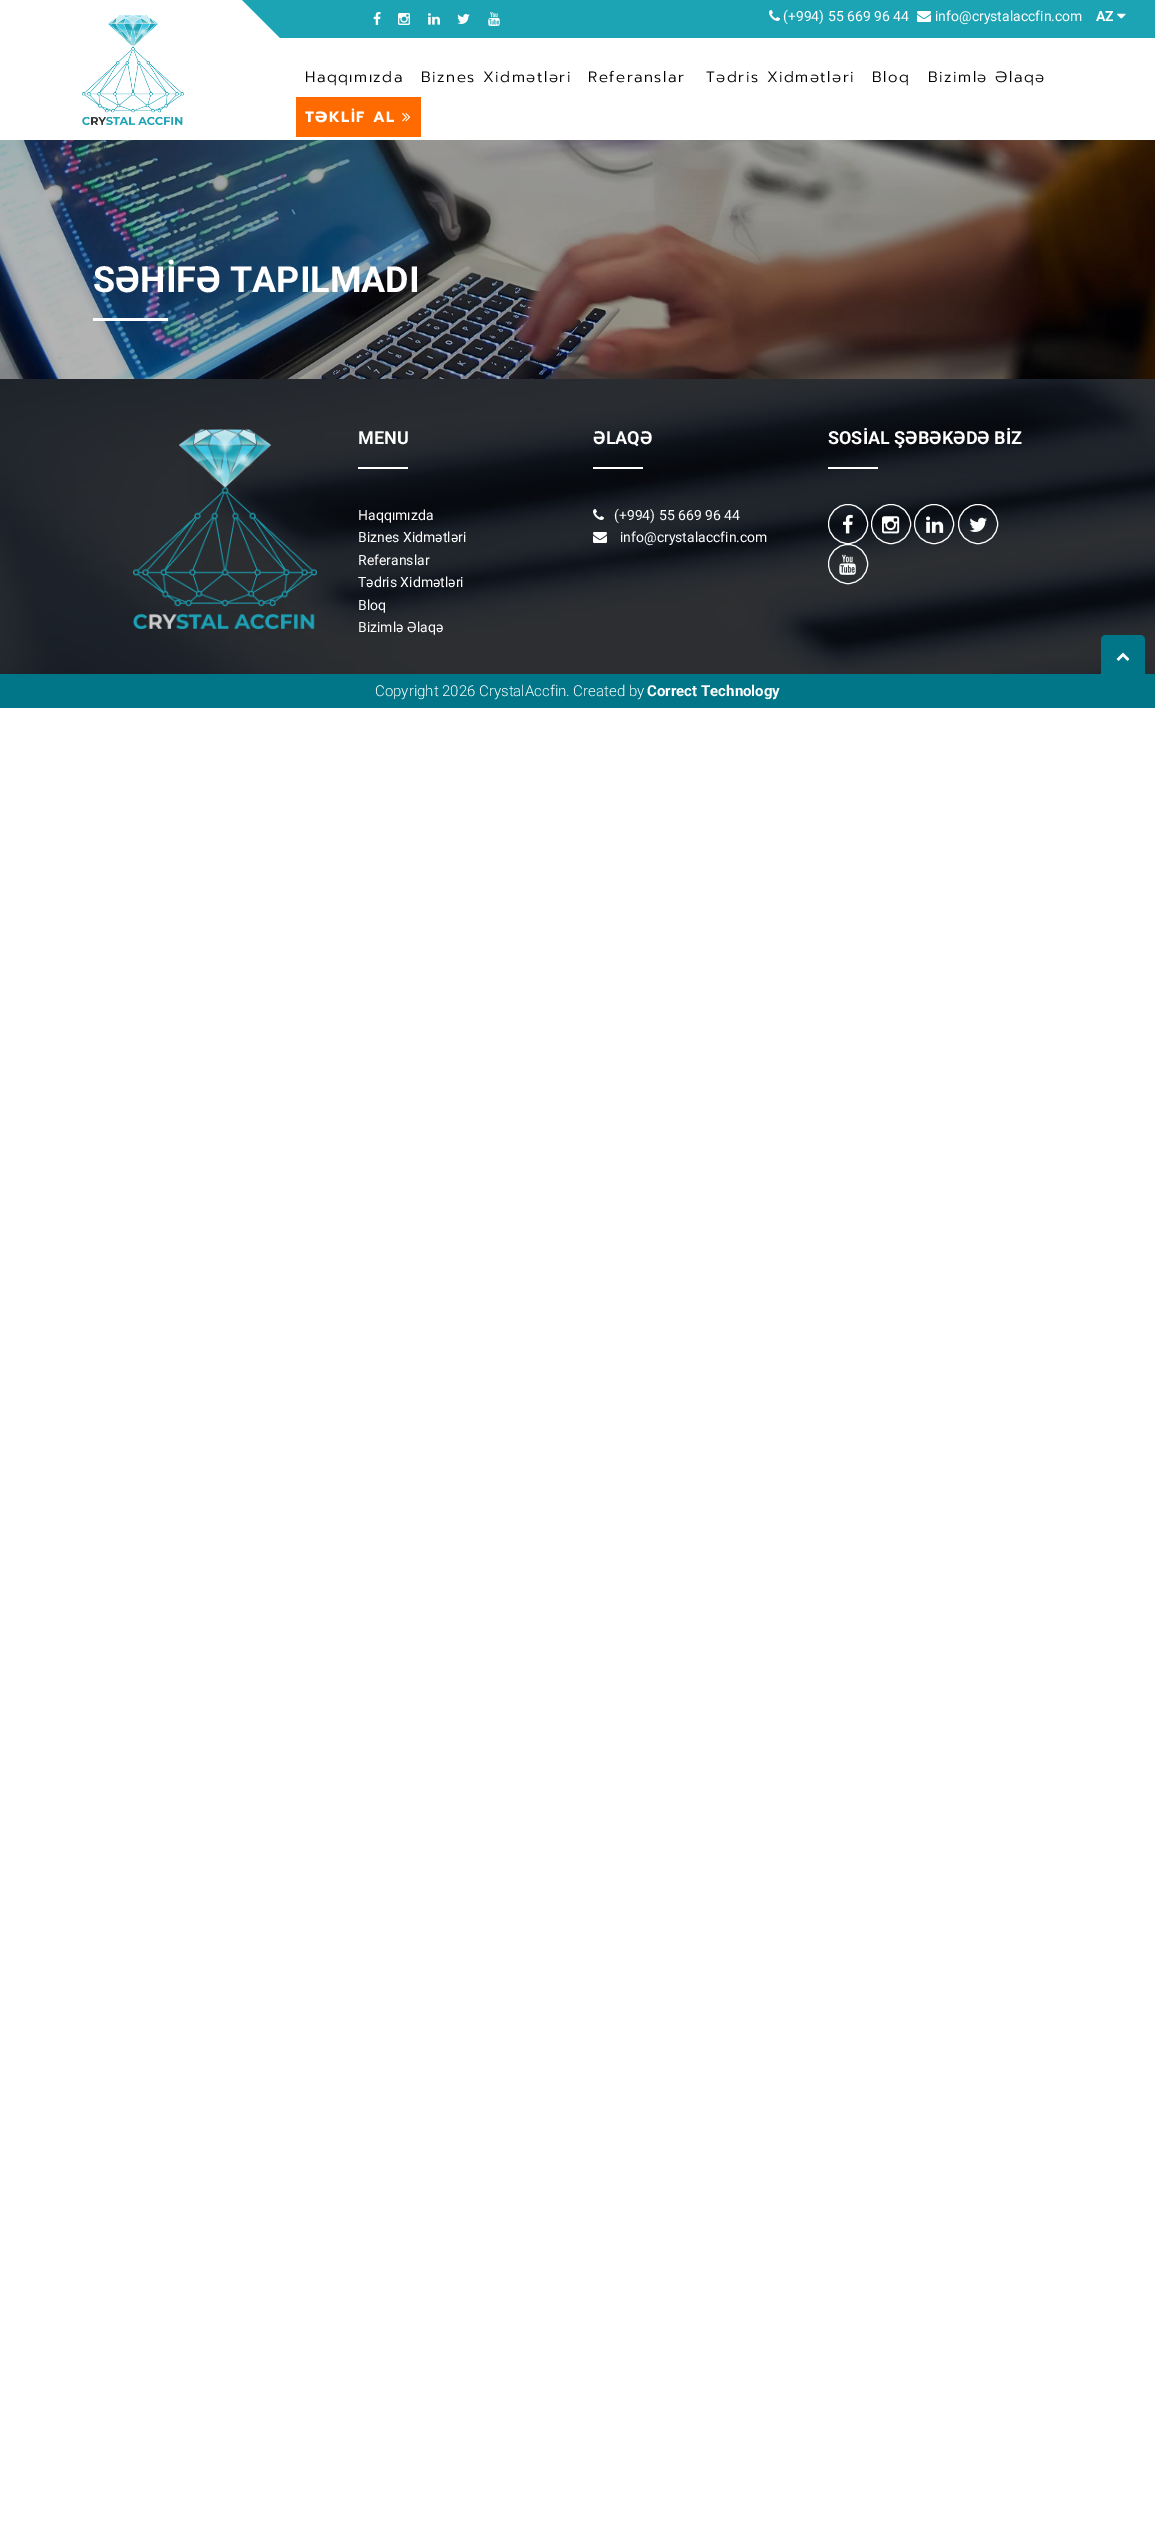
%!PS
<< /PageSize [1155 2533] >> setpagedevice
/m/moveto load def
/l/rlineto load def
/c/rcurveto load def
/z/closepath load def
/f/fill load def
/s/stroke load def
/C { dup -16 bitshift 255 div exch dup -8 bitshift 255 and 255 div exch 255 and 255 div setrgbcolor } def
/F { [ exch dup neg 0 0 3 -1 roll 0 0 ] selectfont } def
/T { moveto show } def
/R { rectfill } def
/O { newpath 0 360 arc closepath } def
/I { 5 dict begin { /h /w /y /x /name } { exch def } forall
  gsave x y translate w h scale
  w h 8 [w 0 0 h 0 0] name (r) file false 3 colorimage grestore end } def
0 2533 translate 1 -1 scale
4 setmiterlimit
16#FFFFFF C
0 0 1155 2533 R
(1.rgb) 82 15 102 110 I
16#1CA4B4 C
242 0 m 200 0 l 38 38 l -200 0 l z f
442 0 713 38 R
(2.rgb) 769 10 11 11 I
/Roboto-Regular 14 F
16#FFFFFF C
(\(+994\) 55 669 96 44) 783 21 T
(3.rgb) 917 11 14 11 I
(info@crystalaccfin.com) 935 21 T
/Roboto-Bold 14 F
(AZ) 1096 21 T
(4.rgb) 1117 13 9 6 I
(5.rgb) 373 12 8 13 I
(6.rgb) 398 13 12 12 I
(7.rgb) 428 13 12 12 I
(8.rgb) 457 14 13 10 I
(9.rgb) 488 12 12 14 I
/Prompt-Light 15 F
16#000000 C
305 82 m 1.5 0 (Haqqımızda) ashow
421 82 m 1.5 0 (Biznes Xidmətləri) ashow
588 82 m 1.5 0 (Referanslar) ashow
706 82 m 1.5 0 (Tədris Xidmətləri) ashow
872 82 m 1.5 0 (Bloq) ashow
928 82 m 1.5 0 (Bizimlə Əlaqə) ashow
16#FF6B00 C
296 97 125 40 R
/Prompt-Bold 15 F
16#FFFFFF C
305 122 m 1.5 0 (TƏKLİF AL) ashow
(10.rgb) 402 113 9 9 I
(11.rgb) 0 140 1155 239 I
/Roboto-Bold 36 F
(SƏHİFƏ TAPILMADI) 93 292 T
93 318 75 3 R
(12.rgb) 0 379 1155 295 I
(13.rgb) 133 429 184 200 I
/Roboto-Bold 18 F
(MENU) 358 444 T
358 467 50 2 R
/Roboto-Regular 14 F
(Haqqımızda) 358 520 T
(Biznes Xidmətləri) 358 542 T
(Referanslar) 358 565 T
(Tədris Xidmətləri) 358 587 T
(Bloq) 358 610 T
(Bizimlə Əlaqə) 358 632 T
/Roboto-Bold 18 F
(ƏLAQƏ) 593 444 T
593 467 50 2 R
(14.rgb) 593 509 11 11 I
/Roboto-Regular 14 F
(\(+994\) 55 669 96 44) 614 520 T
(15.rgb) 593 532 14 11 I
(info@crystalaccfin.com) 620 542 T
/Roboto-Bold 18 F
(SOSİAL ŞƏBƏKƏDƏ BİZ) 828 444 T
828 467 50 2 R
848 524 19.5 O s
(16.rgb) 843 514 10 20 I
891 524 19.5 O s
(17.rgb) 882 516 18 18 I
934 524 19.5 O s
(18.rgb) 926 516 18 17 I
978 524 19.5 O s
(19.rgb) 969 517 18 15 I
848 564 19.5 O s
(20.rgb) 839 554 17 21 I
16#007688 C
0 674 1155 34 R
1106 635 m 34 0 l 3 0 5 2 5 5 c 0 35 l -44 0 l 0 -35 l 0 -3 2 -5 5 -5 c z f
(21.rgb) 1116 652 14 9 I
/Roboto-Light 15 F
16#FFFFFF C
(Copyright 2026 CrystalAccfin. Created by) 375 696 T
/Roboto-Bold 15 F
(Correct Technology) 647 696 T
showpage
